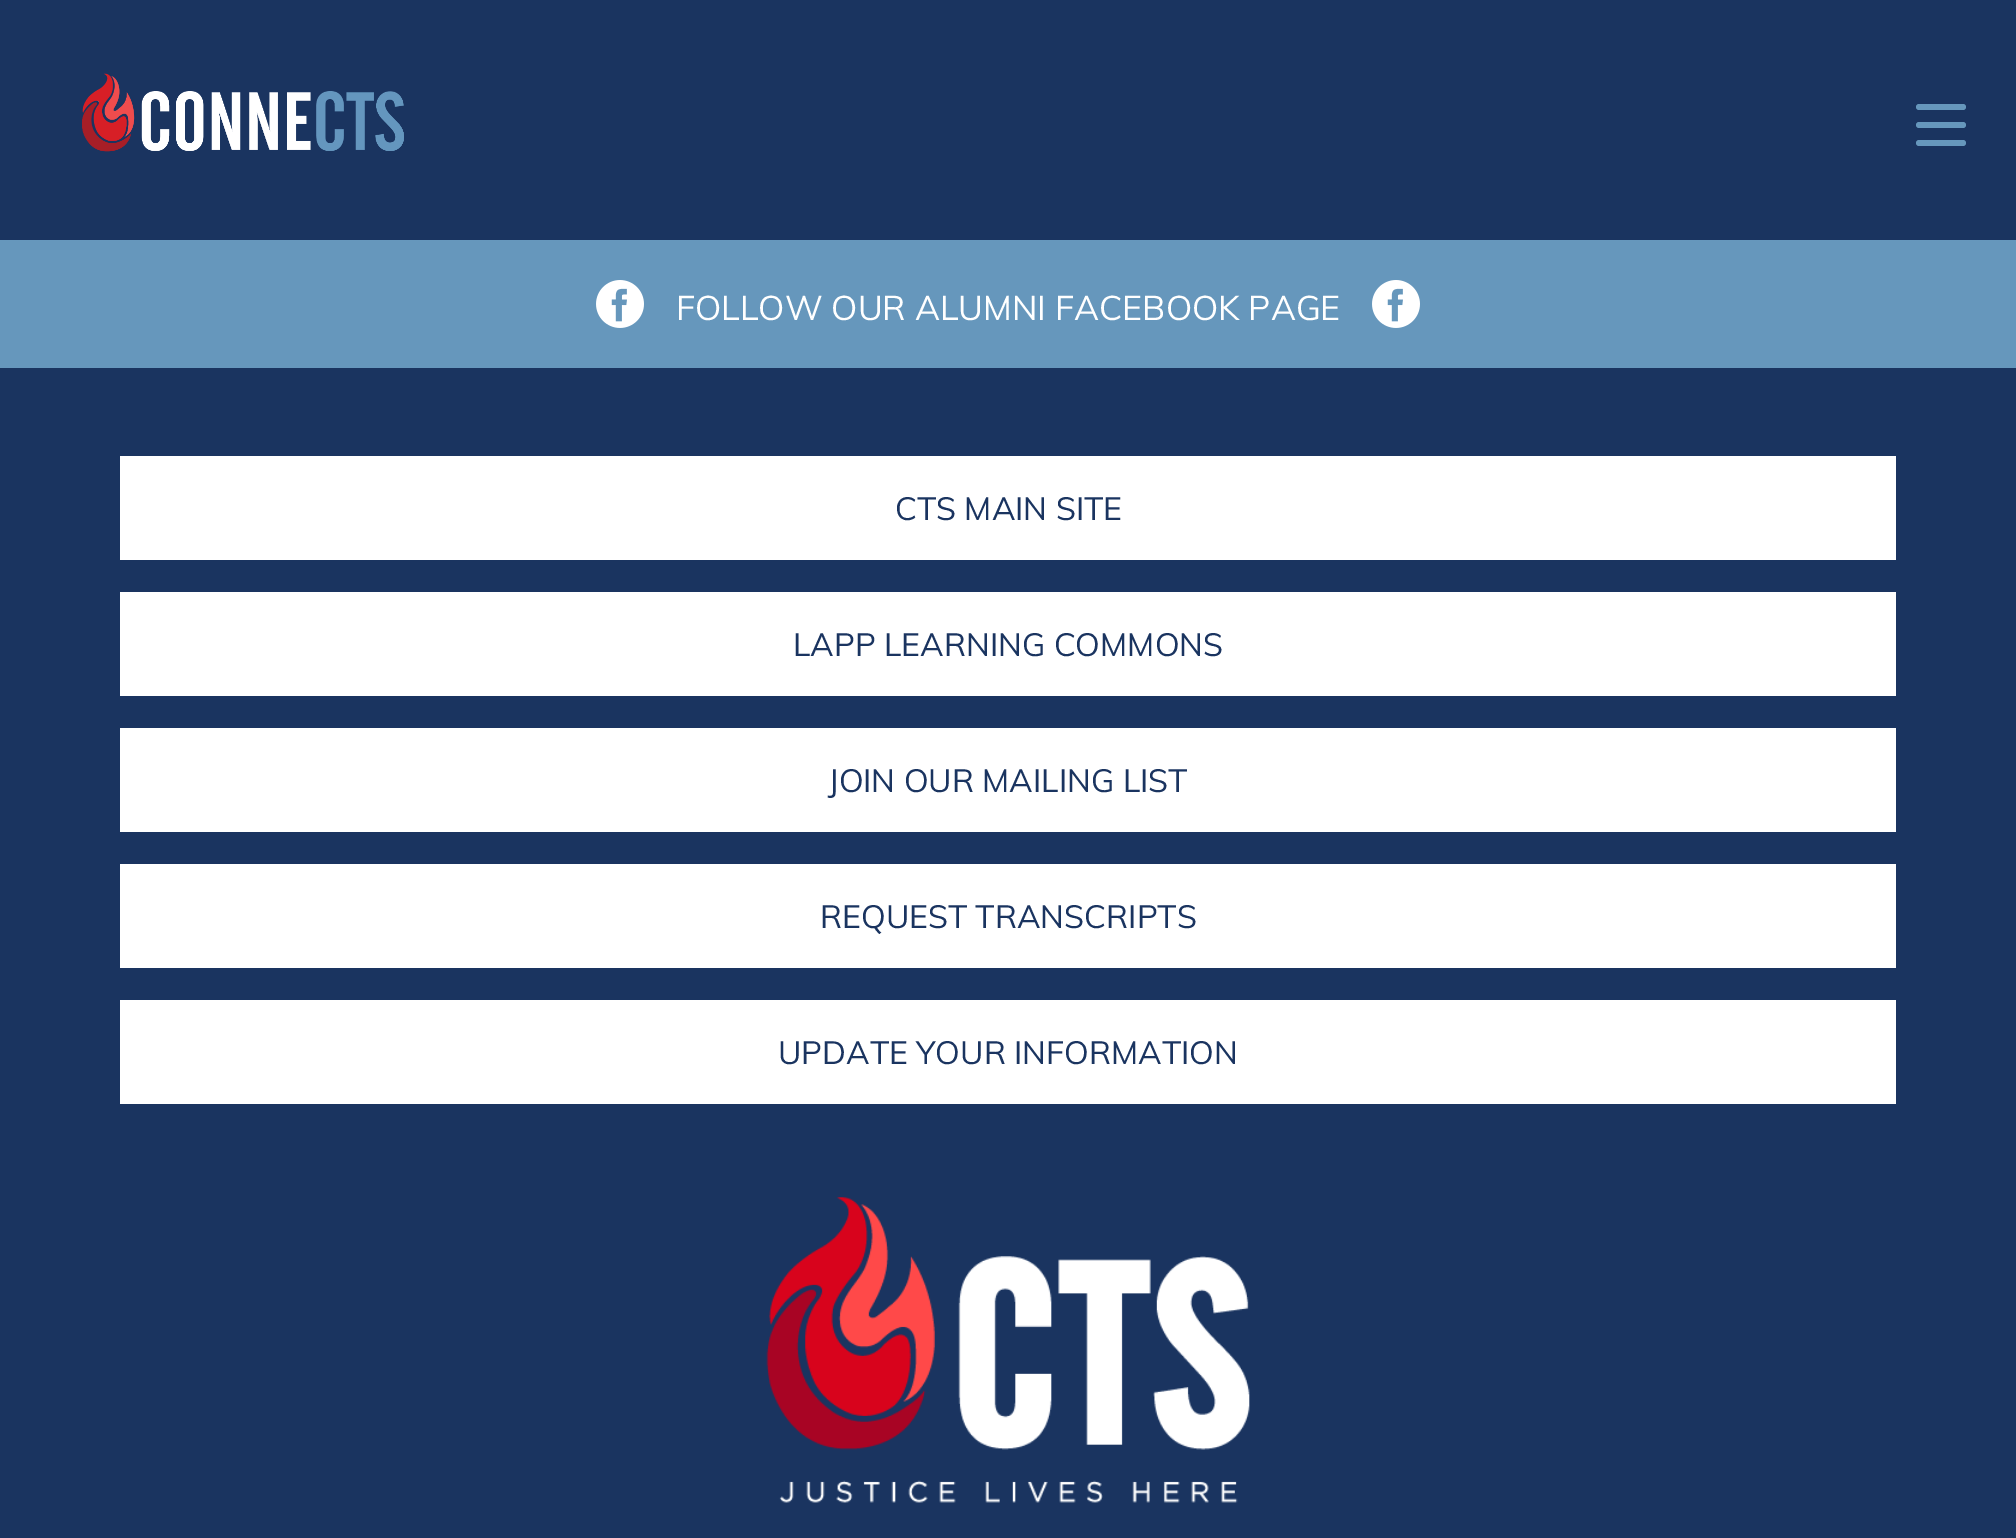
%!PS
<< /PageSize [2016 1538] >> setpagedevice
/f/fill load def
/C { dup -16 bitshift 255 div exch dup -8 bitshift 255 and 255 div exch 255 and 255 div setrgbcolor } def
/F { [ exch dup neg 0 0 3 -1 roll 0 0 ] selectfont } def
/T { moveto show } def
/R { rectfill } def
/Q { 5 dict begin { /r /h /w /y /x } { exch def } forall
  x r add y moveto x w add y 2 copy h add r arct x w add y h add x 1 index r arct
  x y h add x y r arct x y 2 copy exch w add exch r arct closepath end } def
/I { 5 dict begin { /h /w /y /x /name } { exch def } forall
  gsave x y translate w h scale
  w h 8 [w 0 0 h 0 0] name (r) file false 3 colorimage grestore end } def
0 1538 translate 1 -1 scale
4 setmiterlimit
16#6697BC C
0 0 2016 1538 R
16#1A3460 C
0 0 2016 240 R
(1.rgb) 82 73 322 79 I
16#6697BC C
1916 104 50 6 3 Q f
1916 122 50 6 3 Q f
1916 140 50 6 3 Q f
(2.rgb) 596 280 48 48 I
/Muli-Regular 34 F
16#FFFFFF C
(FOLLOW OUR ALUMNI FACEBOOK PAGE) 676 320 T
(2.rgb) 1372 280 48 48 I
16#1A3460 C
0 368 2016 1170 R
16#FFFFFF C
120 456 1776 104 R
/Muli-Regular 32 F
16#1A3460 C
(CTS MAIN SITE) 895 520 T
16#FFFFFF C
120 592 1776 104 R
16#1A3460 C
(LAPP LEARNING COMMONS) 793 656 T
16#FFFFFF C
120 728 1776 104 R
16#1A3460 C
(JOIN OUR MAILING LIST) 828 792 T
16#FFFFFF C
120 864 1776 104 R
16#1A3460 C
(REQUEST TRANSCRIPTS) 820 928 T
16#FFFFFF C
120 1000 1776 104 R
16#1A3460 C
(UPDATE YOUR INFORMATION) 778 1064 T
(3.rgb) 766 1197 484 306 I
showpage
